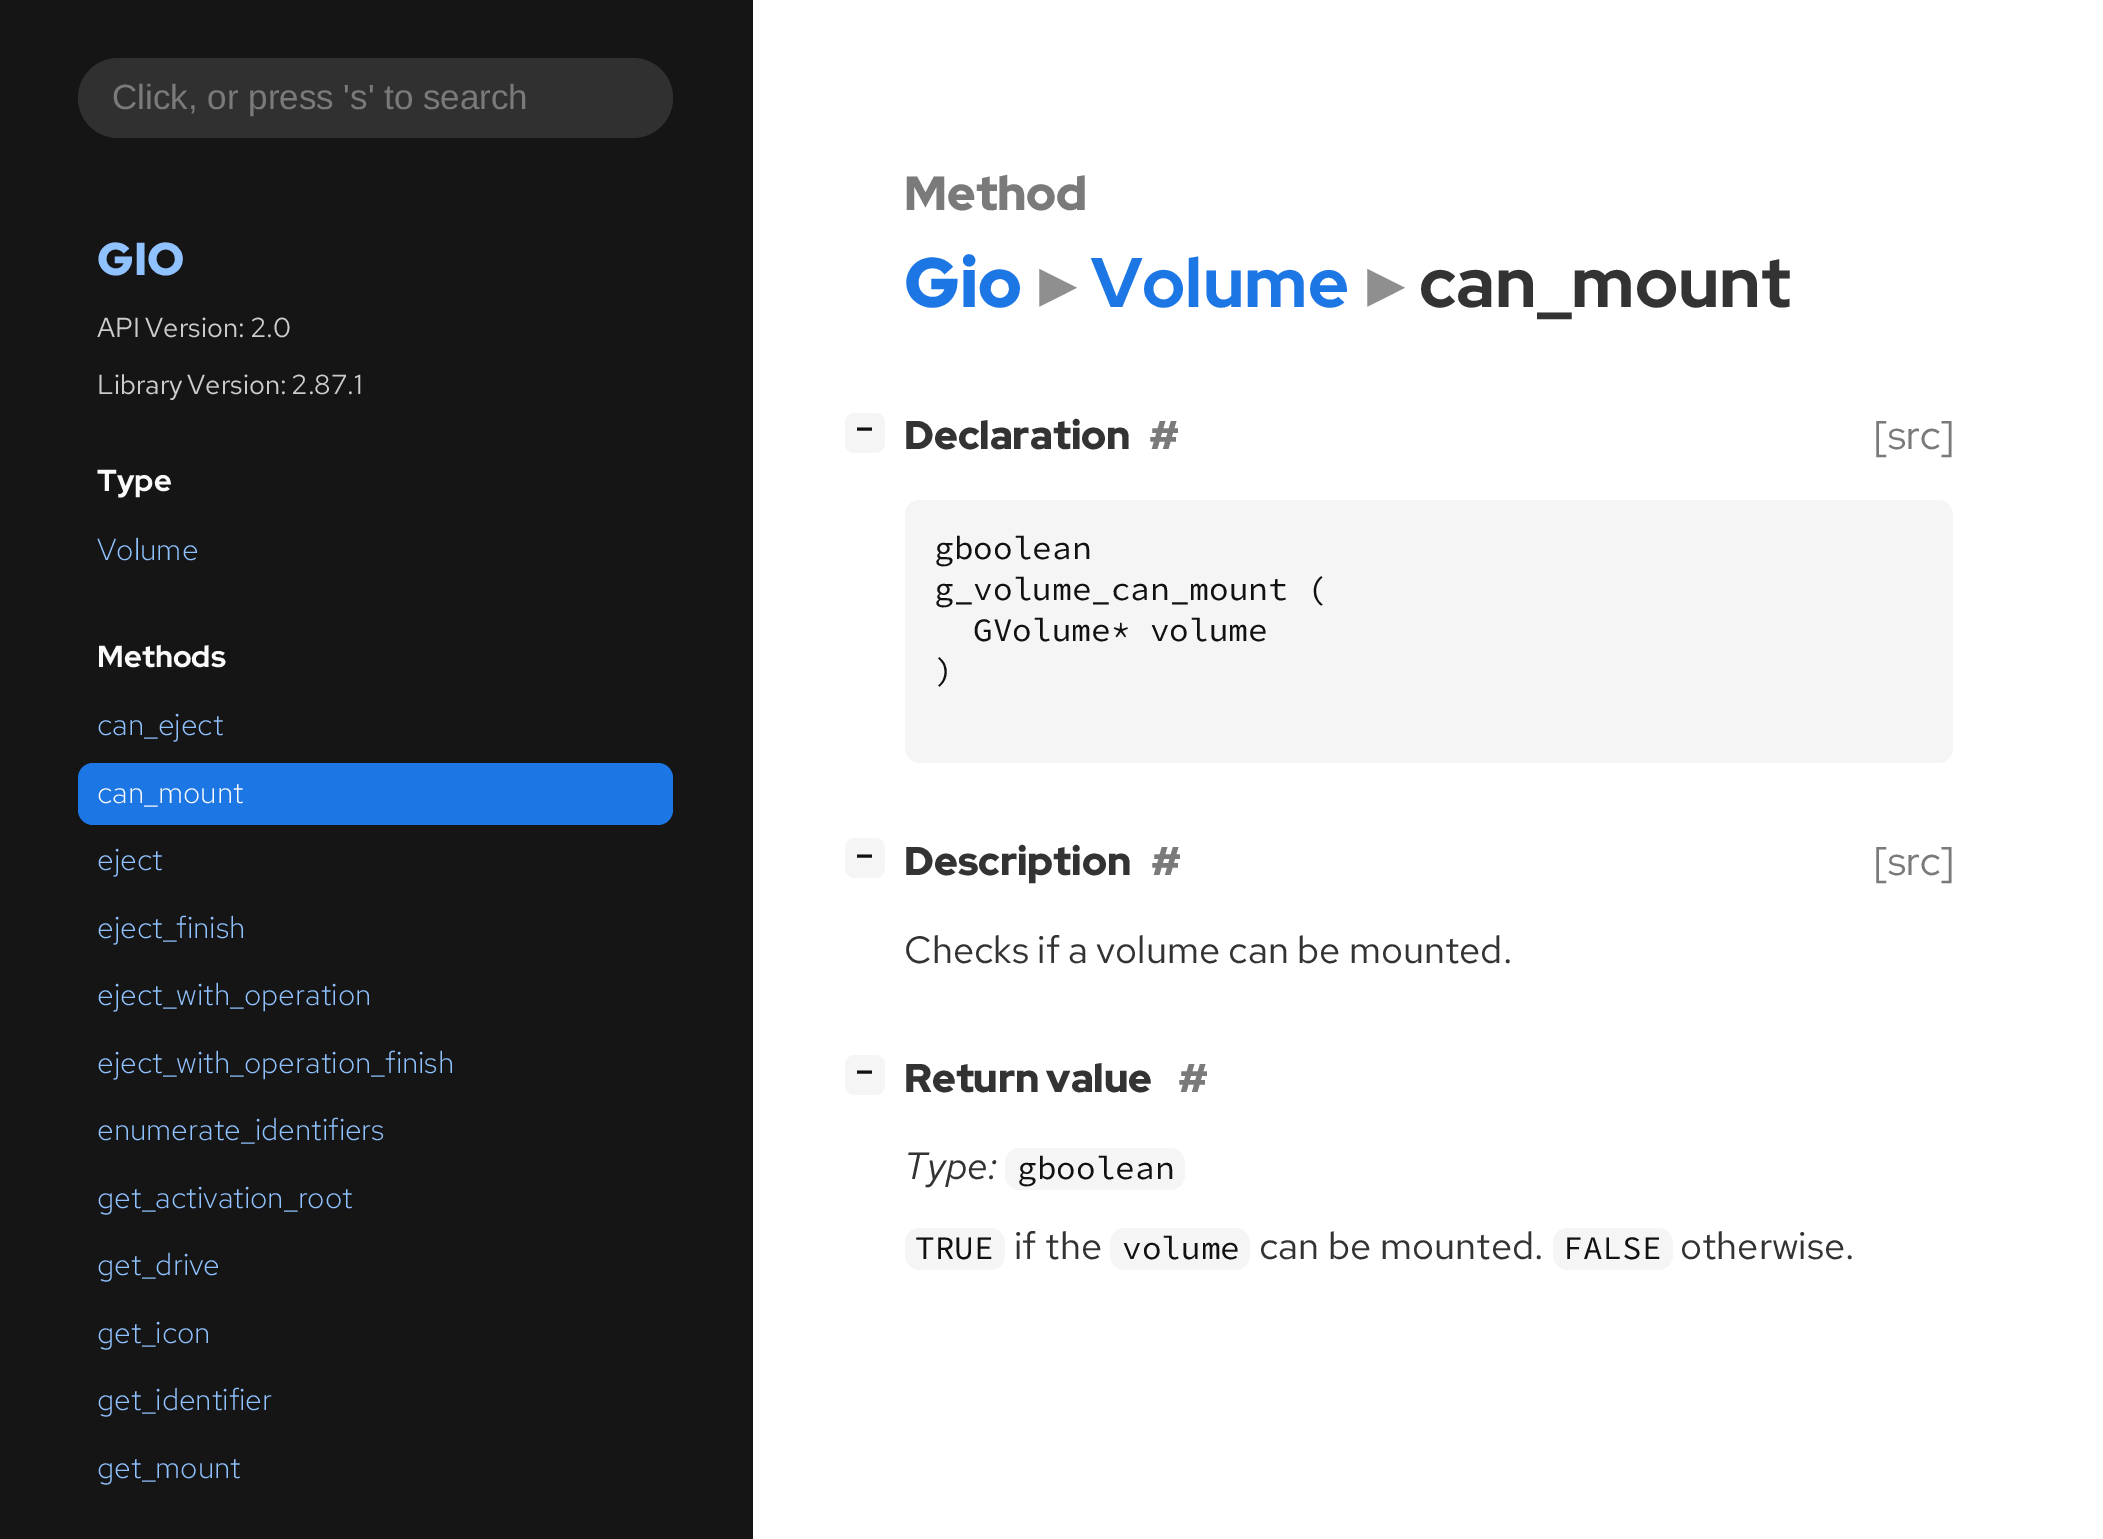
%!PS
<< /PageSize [2103 1539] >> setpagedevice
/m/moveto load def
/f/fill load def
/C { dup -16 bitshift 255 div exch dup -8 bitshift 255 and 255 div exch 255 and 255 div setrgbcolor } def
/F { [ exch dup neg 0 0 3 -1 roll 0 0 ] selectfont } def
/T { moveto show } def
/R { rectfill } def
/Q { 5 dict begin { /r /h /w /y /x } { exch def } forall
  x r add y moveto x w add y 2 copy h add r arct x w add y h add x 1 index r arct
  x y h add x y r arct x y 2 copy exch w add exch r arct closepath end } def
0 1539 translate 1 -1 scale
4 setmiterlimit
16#FFFFFF C
0 0 2103 1539 R
16#151515 C
0 0 753 1539 R
16#303030 C
78 58 595 80 40 Q f
/LiberationSans-Regular 35 F
16#7A7A7A C
(Click, or press 's' to search) 112 109 T
/RedHatDisplay-Black 46 F
16#90C2FF C
(GIO) 97 275 T
/RedHatText-Regular 27.4 F
16#CCCCCC C
97 337 m -1 0 32 (API Version: 2.0) widthshow
97 394 m -2 0 32 (Library Version: 2.87.1) widthshow
/RedHatDisplay-ExtraBold 30.4 F
16#FAFAFA C
(Type) 97 491 T
/RedHatText-Light 30.4 F
16#90C2FF C
(Volume) 97 560 T
/RedHatDisplay-ExtraBold 30.4 F
16#FAFAFA C
(Methods) 97 667 T
/RedHatText-Light 30.4 F
16#90C2FF C
(can_eject) 97 735 T
16#1C76E4 C
78 763 595 62 15 Q f
16#FAFAFA C
(can_mount) 97 803 T
16#90C2FF C
(eject) 97 870 T
(eject_finish) 97 938 T
(eject_with_operation) 97 1005 T
(eject_with_operation_finish) 97 1073 T
(enumerate_identifiers) 97 1140 T
(get_activation_root) 97 1208 T
(get_drive) 97 1275 T
(get_icon) 97 1343 T
(get_identifier) 97 1410 T
(get_mount) 97 1478 T
/RedHatDisplay-Black 48 F
16#7A7A7A C
(Method) 904 210 T
/RedHatDisplay-Black 70 F
16#1C76E4 C
(Gio) 904 307 T
/DejaVuSans-Bold 70 F
16#8F8F8F C
(▸) 1039 307 T
/RedHatDisplay-ExtraBold 70 F
16#1C76E4 C
(Volume) 1091 307 T
/DejaVuSans-Bold 70 F
16#8F8F8F C
(▸) 1367 307 T
/RedHatDisplay-ExtraBold 70 F
16#333333 C
(can_mount) 1419 307 T
16#F5F5F5 C
845 413 40 40 10 Q f
/DejaVuSansMono-Bold 28 F
16#111111 C
(−) 856 438 T
/RedHatDisplay-Black 40 F
16#333333 C
(Declaration) 904 449 T
16#7A7A7A C
(#) 1149 449 T
/RedHatDisplay-Regular 40 F
([src]) 1874 449 T
16#F5F5F5 C
905 500 1048 263 15 Q f
/SourceCodePro-Regular 32.75 F
16#111111 C
(gboolean) 934 559 T
(g_volume_can_mount \() 934 600 T
(GVolume* volume) 973 641 T
(\)) 934 681 T
16#F5F5F5 C
845 838 40 40 10 Q f
/DejaVuSansMono-Bold 28 F
16#111111 C
(−) 856 865 T
/RedHatDisplay-Black 40 F
16#333333 C
(Description) 904 875 T
16#7A7A7A C
(#) 1151 875 T
/RedHatDisplay-Regular 40 F
([src]) 1874 875 T
/RedHatText-Regular 38 F
16#333333 C
904 963 m -.5 0 32 (Checks if a volume can be mounted.) widthshow
16#F5F5F5 C
845 1055 40 40 10 Q f
/DejaVuSansMono-Bold 28 F
16#111111 C
(−) 856 1081 T
/RedHatDisplay-Black 40 F
16#333333 C
904 1092 m -1 0 32 (Return value) widthshow
16#7A7A7A C
(#) 1178 1092 T
/RedHatText-Italic 38 F
16#333333 C
(Type:) 904 1179 T
16#F5F5F5 C
1005 1148 180 42 15 Q f
/SourceCodePro-Regular 32.75 F
16#111111 C
(gboolean) 1017 1179 T
16#F5F5F5 C
905 1228 100 42 15 Q f
16#111111 C
(TRUE) 915 1259 T
/RedHatText-Regular 38 F
16#333333 C
(if the) 1014 1259 T
16#F5F5F5 C
1110 1228 140 42 15 Q f
/SourceCodePro-Regular 32.75 F
16#111111 C
(volume) 1122 1259 T
/RedHatText-Regular 38 F
16#333333 C
(can be mounted.) 1259 1259 T
16#F5F5F5 C
1553 1228 120 42 15 Q f
/SourceCodePro-Regular 32.75 F
16#111111 C
(FALSE) 1563 1259 T
/RedHatText-Regular 38 F
16#333333 C
(otherwise.) 1680 1259 T
showpage
